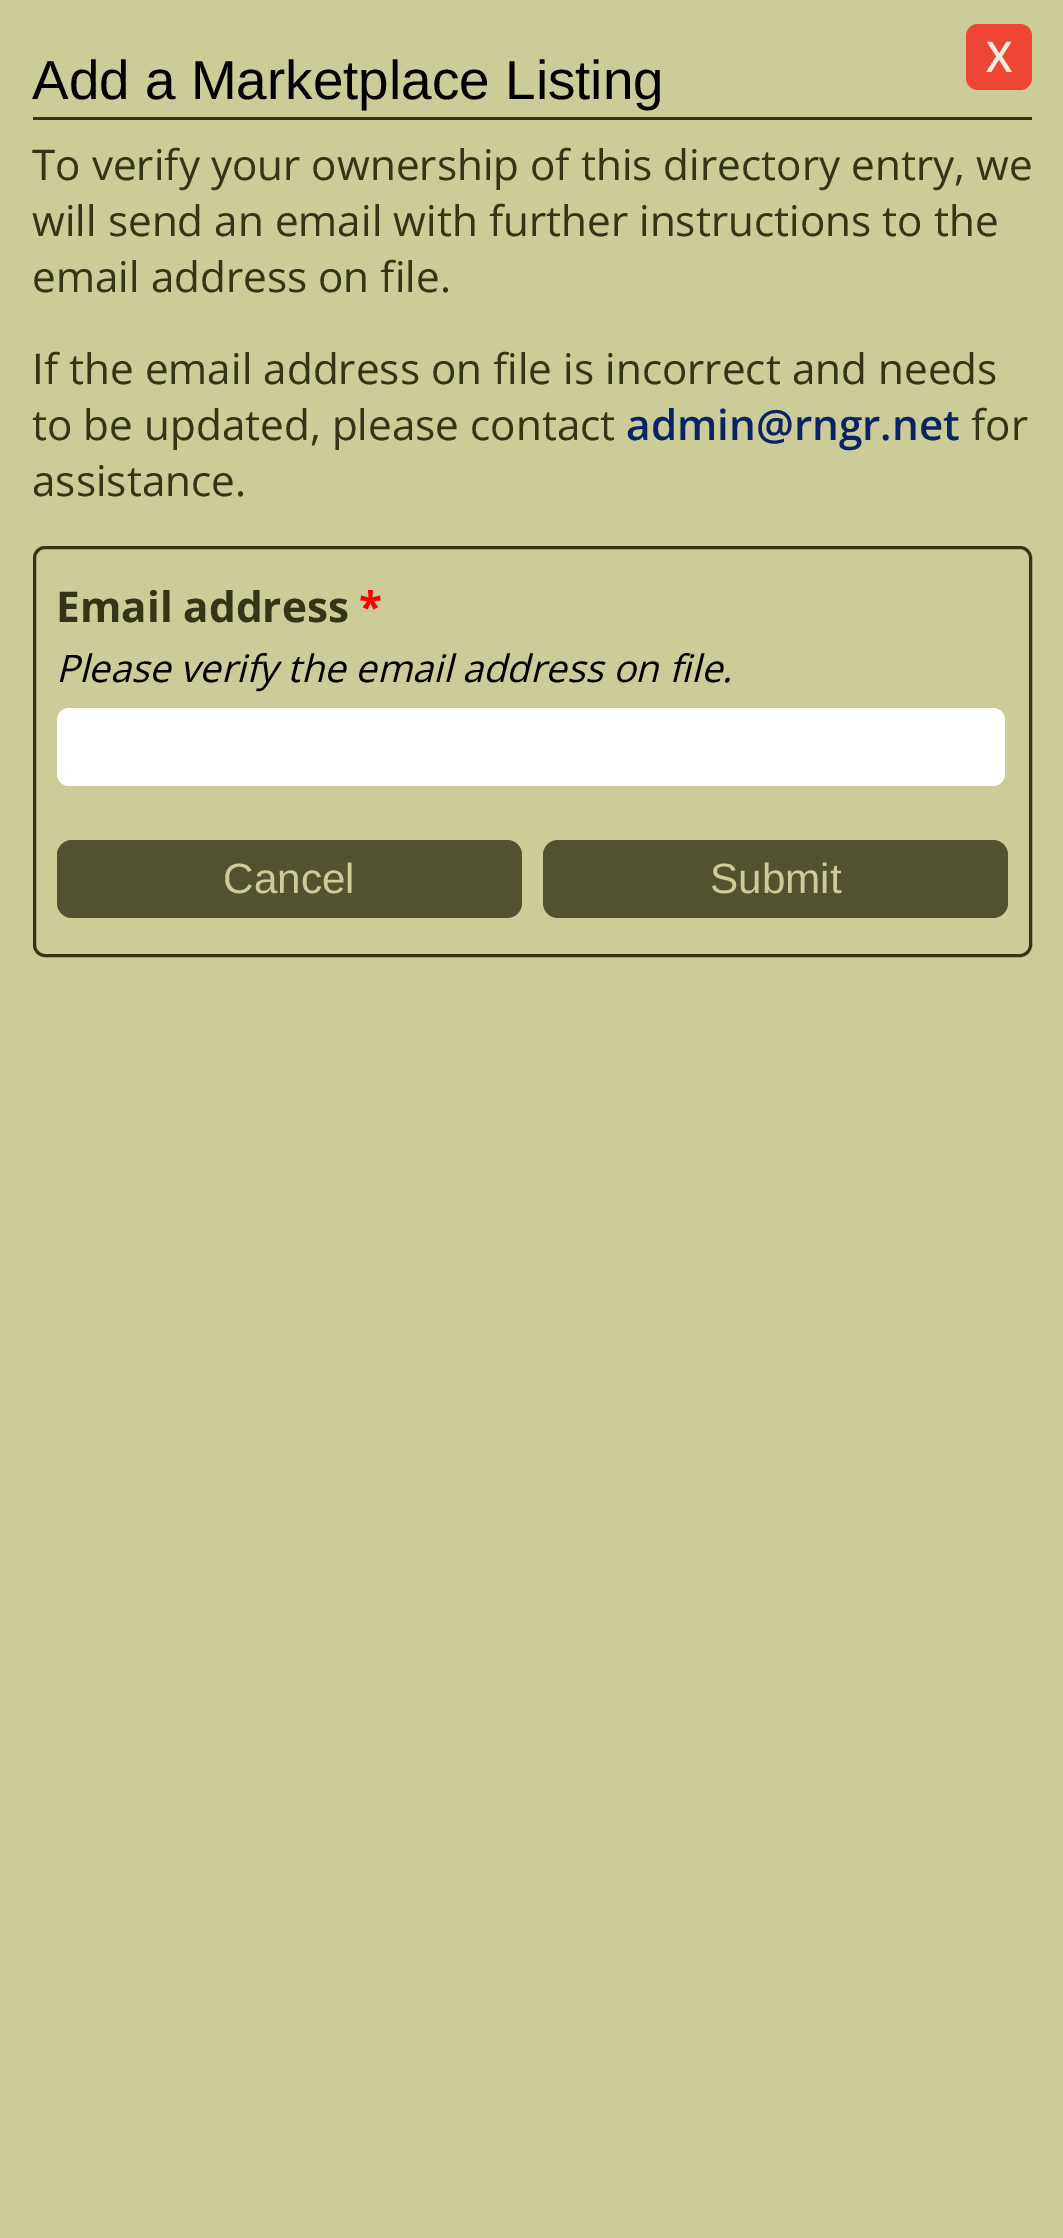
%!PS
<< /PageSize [1063 2238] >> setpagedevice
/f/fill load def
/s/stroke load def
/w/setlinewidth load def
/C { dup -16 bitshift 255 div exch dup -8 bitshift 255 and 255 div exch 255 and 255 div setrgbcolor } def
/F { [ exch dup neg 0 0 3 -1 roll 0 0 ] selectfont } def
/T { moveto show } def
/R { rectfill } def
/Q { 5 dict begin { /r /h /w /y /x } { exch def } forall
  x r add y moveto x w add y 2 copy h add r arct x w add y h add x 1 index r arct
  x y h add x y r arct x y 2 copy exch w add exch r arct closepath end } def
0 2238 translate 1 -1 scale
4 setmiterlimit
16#CCCC99 C
0 0 1063 2238 R
16#343416 C
33 117 999 3 R
/LiberationSans-Regular 54.9 F
16#000000 C
(Add a Marketplace Listing) 32 99 T
16#EE4534 C
966 24 66 66 12 Q f
/OpenSans-SemiBold 42.25 F
16#EEEEDC C
(X) 986 72 T
/OpenSans-Regular 42.25 F
16#343416 C
(To verify your ownership of this directory entry, we) 32 180 T
(will send an email with further instructions to the) 32 236 T
(email address on file.) 32 292 T
(If the email address on file is incorrect and needs) 32 384 T
(to be updated, please contact) 32 440 T
/OpenSans-SemiBold 42.25 F
16#0A2463 C
(admin@rngr.net) 626 440 T
/OpenSans-Regular 42.25 F
16#343416 C
(for) 971 440 T
(assistance.) 32 496 T
3 w
34.5 547.5 996 408 10.5 Q s
/OpenSans-Bold 42.25 F
(Email address) 56 622 T
16#FF0000 C
(*) 359 622 T
/OpenSans-Italic 38 F
16#000000 C
(Please verify the email address on file.) 56 682 T
16#FFFFFF C
57 708 948 78 12 Q f
16#525230 C
57 840 465 78 15 Q f
/LiberationSans-Regular 42.25 F
16#CCCC99 C
(Cancel) 223 893 T
16#525230 C
543 840 465 78 15 Q f
16#CCCC99 C
(Submit) 710 893 T
showpage
